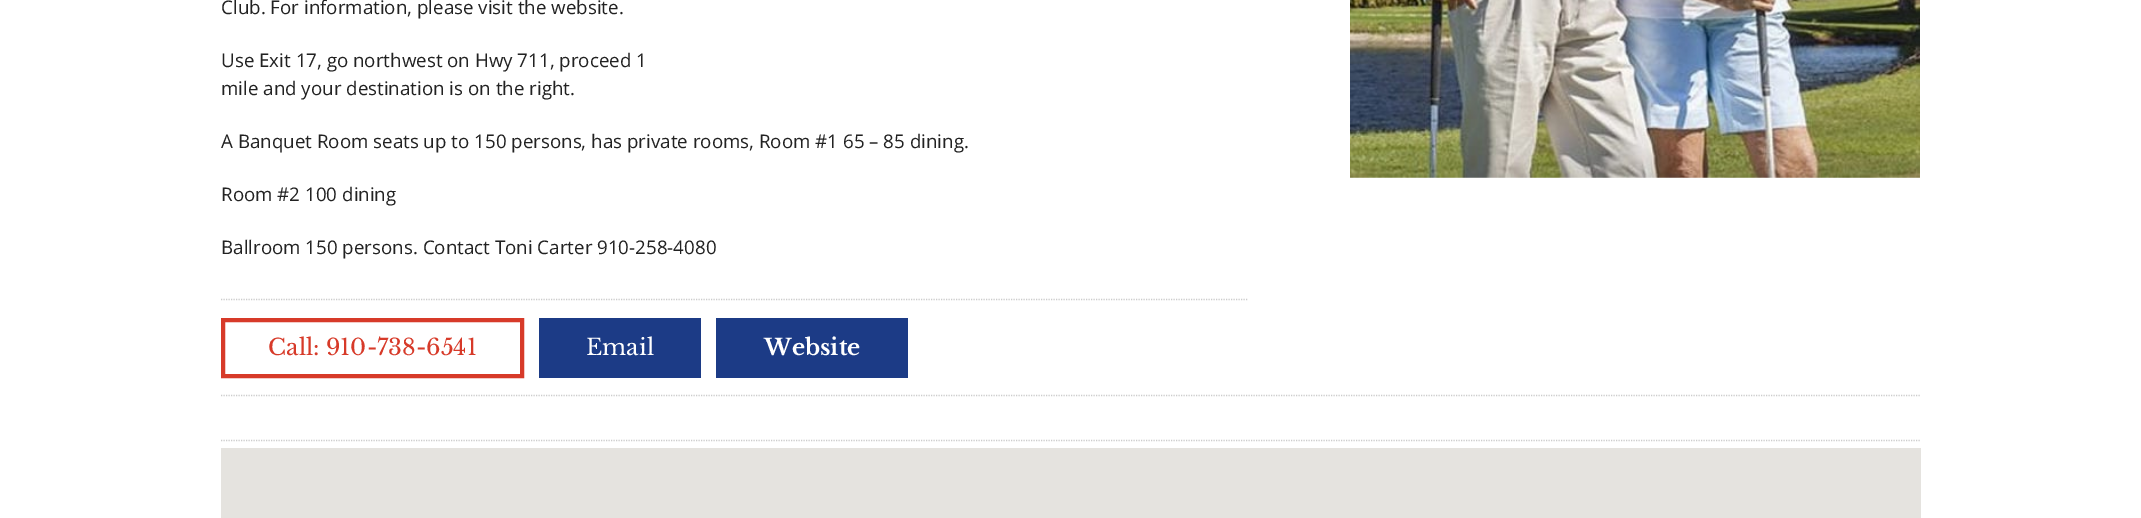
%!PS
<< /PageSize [2141 518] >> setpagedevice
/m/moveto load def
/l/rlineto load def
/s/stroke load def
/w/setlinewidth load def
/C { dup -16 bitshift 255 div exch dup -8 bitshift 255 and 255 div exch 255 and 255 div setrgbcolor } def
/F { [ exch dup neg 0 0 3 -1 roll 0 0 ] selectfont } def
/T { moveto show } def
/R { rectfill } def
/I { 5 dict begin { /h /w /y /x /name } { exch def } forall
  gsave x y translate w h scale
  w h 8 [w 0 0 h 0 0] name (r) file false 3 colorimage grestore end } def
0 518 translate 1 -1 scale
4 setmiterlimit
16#FFFFFF C
0 0 2141 518 R
/OpenSans-Regular 18.75 F
16#222222 C
(Club. For information, please visit the website.) 221 14 T
(Use Exit 17, go northwest on Hwy 711, proceed 1) 221 67 T
(mile and your destination is on the right.) 221 95 T
(A Banquet Room seats up to 150 persons, has private rooms, Room #1 65 – 85 dining.) 221 148 T
(Room #2 100 dining) 221 201 T
(Ballroom 150 persons. Contact Toni Carter 910-258-4080) 221 254 T
16#CCCCCC C
1.2 w
[1.25 1.25] 0 setdash
221 299.5 m 1026.5 0 l s
16#D73A29 C
4 w
[] 0 setdash
223 320 299 56 rectstroke
/LibreBaskerville-Regular 22.5 F
(Call: 910-738-6541) 268 355 T
16#1C3B86 C
539 318 162 60 R
16#FFFFFF C
(Email) 586 355 T
16#1C3B86 C
716 318 192 60 R
/LibreBaskerville-Bold 22.5 F
16#FFFFFF C
(Website) 764 355 T
(1.rgb) 1350 0 570 178 I
16#CCCCCC C
1.2 w
[1.25 1.25] 0 setdash
221 395.5 m 1700 0 l s
221 440.5 m 1700 0 l s
16#E5E3DF C
221 448 1700 70 R
showpage
